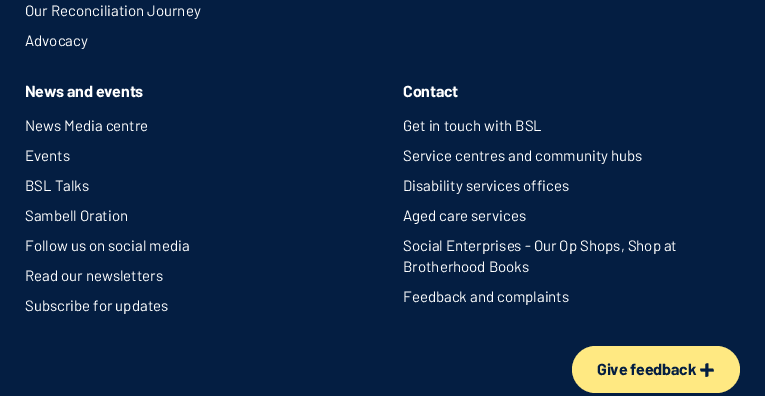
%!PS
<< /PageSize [765 418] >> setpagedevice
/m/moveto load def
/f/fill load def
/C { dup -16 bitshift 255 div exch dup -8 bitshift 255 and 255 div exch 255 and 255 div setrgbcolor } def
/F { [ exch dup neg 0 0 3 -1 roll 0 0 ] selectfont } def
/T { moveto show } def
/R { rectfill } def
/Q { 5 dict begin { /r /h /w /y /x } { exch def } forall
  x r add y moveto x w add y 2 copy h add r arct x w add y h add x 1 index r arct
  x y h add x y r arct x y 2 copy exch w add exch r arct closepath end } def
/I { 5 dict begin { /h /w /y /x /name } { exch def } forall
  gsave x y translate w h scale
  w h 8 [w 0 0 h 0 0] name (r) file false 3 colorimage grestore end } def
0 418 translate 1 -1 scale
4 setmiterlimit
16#FFFFFF C
0 0 765 418 R
16#041E42 C
0 0 765 396 R
/Barlow-Regular 15 F
16#FFFFFF C
(Our Reconciliation Journey) 25 16 T
(Advocacy) 25 46 T
/Barlow-Bold 16 F
25 97 m -.2 0 (News and events) ashow
/Barlow-Regular 15 F
(News Media centre) 25 131 T
(Events) 25 161 T
(BSL Talks) 25 191 T
(Sambell Oration) 25 221 T
(Follow us on social media) 25 251 T
(Read our newsletters) 25 281 T
(Subscribe for updates) 25 311 T
/Barlow-Bold 16 F
403 97 m -.2 0 (Contact) ashow
/Barlow-Regular 15 F
(Get in touch with BSL) 403 131 T
(Service centres and community hubs) 403 161 T
(Disability services offices) 403 191 T
(Aged care services) 403 221 T
(Social Enterprises - Our Op Shops, Shop at) 403 251 T
(Brotherhood Books) 403 272 T
(Feedback and complaints) 403 302 T
16#FFE982 C
572 346 168 47 23.5 Q f
/Barlow-Bold 16 F
16#041E42 C
597 375 m -.2 0 (Give feedback) ashow
(1.rgb) 700 363 14 14 I
showpage
